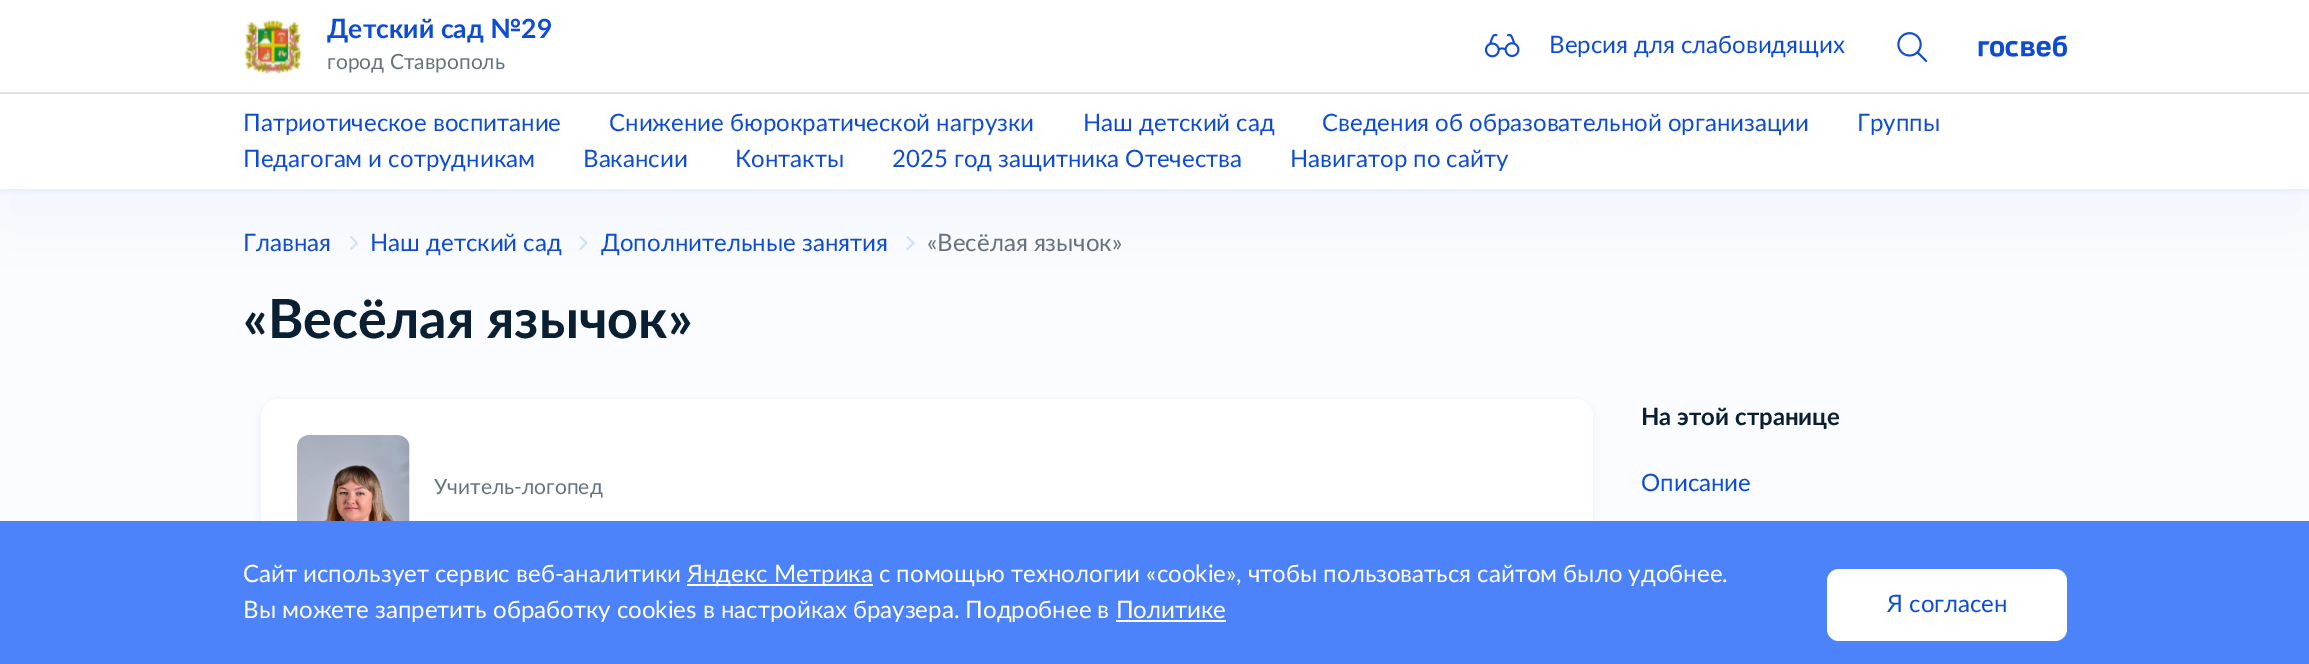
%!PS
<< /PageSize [2309 664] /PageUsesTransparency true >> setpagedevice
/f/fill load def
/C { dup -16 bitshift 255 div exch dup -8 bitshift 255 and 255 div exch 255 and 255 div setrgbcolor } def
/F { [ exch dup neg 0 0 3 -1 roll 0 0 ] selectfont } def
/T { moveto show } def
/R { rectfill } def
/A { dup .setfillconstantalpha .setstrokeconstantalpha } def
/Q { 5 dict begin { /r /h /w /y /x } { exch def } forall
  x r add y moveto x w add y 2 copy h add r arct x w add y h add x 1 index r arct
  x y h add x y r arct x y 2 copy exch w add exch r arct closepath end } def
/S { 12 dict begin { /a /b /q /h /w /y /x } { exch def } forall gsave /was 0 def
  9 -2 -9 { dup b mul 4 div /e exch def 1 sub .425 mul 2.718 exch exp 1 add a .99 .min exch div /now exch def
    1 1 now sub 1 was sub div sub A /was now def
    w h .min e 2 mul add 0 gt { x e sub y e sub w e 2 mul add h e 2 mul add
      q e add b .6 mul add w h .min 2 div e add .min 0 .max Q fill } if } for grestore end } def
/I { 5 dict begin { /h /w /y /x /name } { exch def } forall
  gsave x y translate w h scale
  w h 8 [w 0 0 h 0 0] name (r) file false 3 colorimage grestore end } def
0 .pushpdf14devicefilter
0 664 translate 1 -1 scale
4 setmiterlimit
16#FAFCFF C
0 0 2309 664 R
(5.rgb) 350 236 8 14 I
(6.rgb) 579 236 9 15 I
(6.rgb) 906 236 9 15 I
16#E6EBF5 C
0 36 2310 189 0 36 .4 S
16#E3EBFC C
0 2 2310 189 0 3 1 S
16#FFFFFF C
0 0 2309 189 R
(1.rgb) 244 20 58 55 I
/Lato-Bold 26.5 F
16#0D4CD3 C
(Детский сад №29) 327 38 T
/Lato-Regular 21 F
16#66727F C
(город Ставрополь) 327 69 T
(2.rgb) 1484 33 36 25 I
/Lato-Regular 24 F
16#0D4CD3 C
(Версия для слабовидящих) 1549 53 T
(3.rgb) 1897 32 31 30 I
(4.rgb) 1978 35 89 22 I
16#E1E1E1 C
0 92 2309 2 R
16#0D4CD3 C
(Патриотическое воспитание) 243 131 T
(Снижение бюрократической нагрузки) 609 131 T
(Наш детский сад) 1083 131 T
(Сведения об образовательной организации) 1322 131 T
(Группы) 1857 131 T
(Педагогам и сотрудникам) 243 167 T
(Вакансии) 583 167 T
(Контакты) 735 167 T
(2025 год защитника Отечества) 892 167 T
(Навигатор по сайту) 1290 167 T
(Главная) 243 251 T
(Наш детский сад) 370 251 T
(Дополнительные занятия) 601 251 T
16#66727F C
(«Весёлая язычок») 927 251 T
/Lato-Bold 54 F
16#0B1F33 C
(«Весёлая язычок») 243 338 T
16#E3EBFC C
261 401 1332 246 18 3 1 S
16#FFFFFF C
261 399 1332 246 18 Q f
(7.rgb) 297 435 113 86 I
/Lato-Regular 21 F
16#66727F C
(Учитель-логопед) 434 494 T
/Lato-Bold 24 F
16#0B1F33 C
(На этой странице) 1641 425 T
/Lato-Regular 24 F
16#0D4CD3 C
(Описание) 1641 491 T
16#4D83FA C
0 521 2309 143 R
16#FFFFFF C
(Сайт использует сервис веб-аналитики) 243 582 T
687 584 186 2 R
(Яндекс Метрика с помощью технологии «cookie», чтобы пользоваться сайтом было удобнее.) 687 582 T
(Вы можете запретить обработку cookies в настройках браузера. Подробнее в Политике) 243 618 T
1116 620 110 2 R
1827 569 240 72 12 Q f
16#0D4CD3 C
(Я согласен) 1887 612 T
.poppdf14devicefilter showpage
